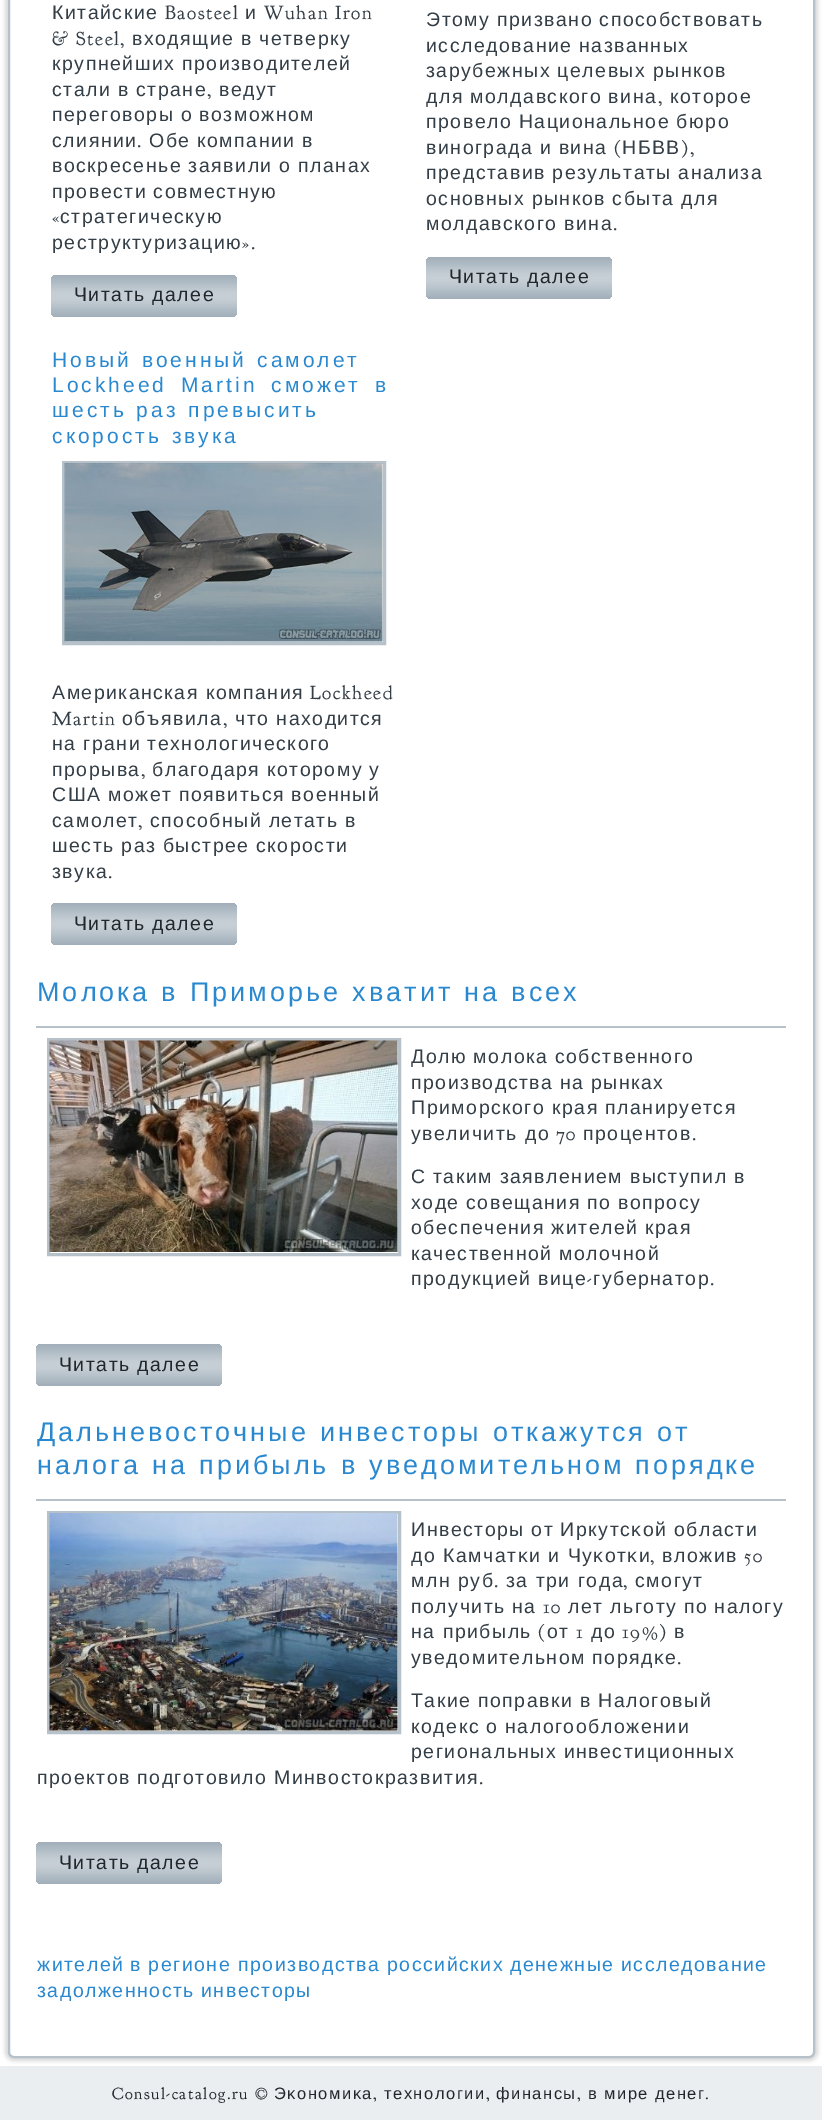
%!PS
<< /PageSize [822 2120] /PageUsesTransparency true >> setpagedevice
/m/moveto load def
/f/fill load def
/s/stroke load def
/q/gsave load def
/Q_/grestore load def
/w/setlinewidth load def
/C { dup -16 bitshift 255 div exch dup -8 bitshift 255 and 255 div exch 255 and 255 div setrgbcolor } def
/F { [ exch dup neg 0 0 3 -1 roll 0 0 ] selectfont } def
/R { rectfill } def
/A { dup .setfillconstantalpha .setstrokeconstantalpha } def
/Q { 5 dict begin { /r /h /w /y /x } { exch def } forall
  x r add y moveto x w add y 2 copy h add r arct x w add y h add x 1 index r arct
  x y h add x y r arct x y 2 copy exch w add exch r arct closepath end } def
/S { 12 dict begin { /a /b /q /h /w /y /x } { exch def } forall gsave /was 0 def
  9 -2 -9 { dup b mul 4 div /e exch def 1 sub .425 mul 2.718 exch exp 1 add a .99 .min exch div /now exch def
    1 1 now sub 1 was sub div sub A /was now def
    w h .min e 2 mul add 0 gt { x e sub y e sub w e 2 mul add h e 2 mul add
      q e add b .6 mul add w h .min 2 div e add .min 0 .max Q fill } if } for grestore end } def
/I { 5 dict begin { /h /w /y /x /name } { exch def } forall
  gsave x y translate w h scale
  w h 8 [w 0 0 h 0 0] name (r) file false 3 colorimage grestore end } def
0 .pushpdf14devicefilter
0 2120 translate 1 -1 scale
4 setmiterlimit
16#FFFFFF C
0 0 822 2120 R
16#000000 C
5 -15 813 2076 9 2 .15 S
16#FFFFFF C
9 -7 805 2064 5 Q q f Q_
16#B6C1C9 C
2 w
s
/LiberationSans-Regular 19.5 F
16#343E46 C
52 19 m 1.5 0 (Китайские) ashow
/GoudyBookletter1911-Regular 19.5 F
165 19 m 1.5 0 (Baosteel) ashow
/LiberationSans-Regular 19.5 F
245 19 m 1.5 0 (и) ashow
/GoudyBookletter1911-Regular 19.5 F
264 19 m 1.5 0 (Wuhan Iron) ashow
52 45 m 1.5 0 (& Steel,) ashow
/LiberationSans-Regular 19.5 F
132 45 m 1.5 0 (входящие) ashow
241 45 m 1.5 0 (в) ashow
259 45 m 1.5 0 (четверку) ashow
52 70 m -.5 0 32 1.5 0 (крупнейших производителей) awidthshow
52 96 m -.5 0 32 1.5 0 (стали в стране) awidthshow
/GoudyBookletter1911-Regular 19.5 F
207 96 m 1.5 0 (,) ashow
/LiberationSans-Regular 19.5 F
219 96 m 1.5 0 (ведут) ashow
52 121 m -.5 0 32 1.5 0 (переговоры о возможном) awidthshow
52 147 m 1.5 0 (слиянии) ashow
/GoudyBookletter1911-Regular 19.5 F
137 147 m 1.5 0 (.) ashow
/LiberationSans-Regular 19.5 F
149 147 m -.5 0 32 1.5 0 (Обе компании в) awidthshow
52 172 m -.5 0 32 1.5 0 (воскресенье заявили о планах) awidthshow
52 198 m -.5 0 32 1.5 0 (провести совместную) awidthshow
/GoudyBookletter1911-Regular 19.5 F
52 223 m 1.5 0 («) ashow
/LiberationSans-Regular 19.5 F
60 223 m 1.5 0 (стратегическую) ashow
52 249 m 1.5 0 (реструктуризацию) ashow
/GoudyBookletter1911-Regular 19.5 F
242 249 m 1.5 0 (».) ashow
q 51 275 186 42 6 Q clip newpath
<< /ShadingType 2 /ColorSpace /DeviceRGB /Coords [144 275 144 317] /Extend [true true] /Function << /FunctionType 3 /Domain [0 1] /Functions [<< /FunctionType 2 /Domain [0 1] /C0 [.631 .686 .729] /C1 [.769 .804 .831] /N 1 >> << /FunctionType 2 /Domain [0 1] /C0 [.769 .804 .831] /C1 [.78 .816 .839] /N 1 >> << /FunctionType 2 /Domain [0 1] /C0 [.78 .816 .839] /C1 [.769 .804 .831] /N 1 >> << /FunctionType 2 /Domain [0 1] /C0 [.769 .804 .831] /C1 [.631 .686 .729] /N 1 >>] /Bounds [.4 .5 .6] /Encode [0 1 0 1 0 1 0 1] >> >> shfill Q_
/LiberationSans-Regular 19.5 F
16#21272C C
74 301 m -.5 0 32 1.5 0 (Читать далее) awidthshow
16#343E46 C
426 26 m -.5 0 32 1.5 0 (Этому призвано способствовать) awidthshow
426 52 m -.5 0 32 1.5 0 (исследование названных) awidthshow
426 77 m -.5 0 32 1.5 0 (зарубежных целевых рынков) awidthshow
426 103 m -.5 0 32 1.5 0 (для молдавского вина) awidthshow
/GoudyBookletter1911-Regular 19.5 F
658 103 m 1.5 0 (,) ashow
/LiberationSans-Regular 19.5 F
670 103 m 1.5 0 (которое) ashow
426 128 m -.5 0 32 1.5 0 (провело Национальное бюро) awidthshow
426 154 m -.5 0 32 1.5 0 (винограда и вина) awidthshow
/GoudyBookletter1911-Regular 19.5 F
614 154 m 1.5 0 (\() ashow
/LiberationSans-Regular 19.5 F
622 154 m 1.5 0 (НБВВ) ashow
/GoudyBookletter1911-Regular 19.5 F
681 154 m 1.5 0 (\),) ashow
/LiberationSans-Regular 19.5 F
426 179 m -.5 0 32 1.5 0 (представив результаты анализа) awidthshow
426 205 m -.5 0 32 1.5 0 (основных рынков сбыта для) awidthshow
426 230 m -.5 0 32 1.5 0 (молдавского вина) awidthshow
/GoudyBookletter1911-Regular 19.5 F
613 230 m 1.5 0 (.) ashow
q 426 257 186 42 6 Q clip newpath
<< /ShadingType 2 /ColorSpace /DeviceRGB /Coords [519 257 519 299] /Extend [true true] /Function << /FunctionType 3 /Domain [0 1] /Functions [<< /FunctionType 2 /Domain [0 1] /C0 [.631 .686 .729] /C1 [.769 .804 .831] /N 1 >> << /FunctionType 2 /Domain [0 1] /C0 [.769 .804 .831] /C1 [.78 .816 .839] /N 1 >> << /FunctionType 2 /Domain [0 1] /C0 [.78 .816 .839] /C1 [.769 .804 .831] /N 1 >> << /FunctionType 2 /Domain [0 1] /C0 [.769 .804 .831] /C1 [.631 .686 .729] /N 1 >>] /Bounds [.4 .5 .6] /Encode [0 1 0 1 0 1 0 1] >> >> shfill Q_
/LiberationSans-Regular 19.5 F
16#21272C C
449 283 m -.5 0 32 1.5 0 (Читать далее) awidthshow
/LiberationSans-Regular 21 F
16#2A88CF C
52 367 m 1 0 32 3 0 (Новый военный самолет) awidthshow
52 392 m 5 0 32 3 0 (Lockheed Martin сможет в) awidthshow
52 417 m 1 0 32 3 0 (шесть раз превысить) awidthshow
52 443 m 1 0 32 3 0 (скорость звука) awidthshow
16#B6C1C9 C
3 w
63.5 462.5 321 181 rectstroke
(1.rgb) 64 463 319 179 I
/LiberationSans-Regular 19.5 F
16#343E46 C
52 699 m 1.5 0 (Американская компания) ashow
/GoudyBookletter1911-Regular 19.5 F
310 699 m 1.5 0 (Lockheed) ashow
52 725 m 1.5 0 (Martin) ashow
/LiberationSans-Regular 19.5 F
122 725 m 1.5 0 (объявила) ashow
/GoudyBookletter1911-Regular 19.5 F
223 725 m 1.5 0 (,) ashow
/LiberationSans-Regular 19.5 F
235 725 m 1.5 0 (что находится) ashow
52 750 m -.5 0 32 1.5 0 (на грани технологического) awidthshow
52 776 m 1.5 0 (прорыва) ashow
/GoudyBookletter1911-Regular 19.5 F
141 776 m 1.5 0 (,) ashow
/LiberationSans-Regular 19.5 F
152 776 m -.5 0 32 1.5 0 (благодаря которому у) awidthshow
52 801 m -.5 0 32 1.5 0 (США может появиться военный) awidthshow
52 827 m 1.5 0 (самолет) ashow
/GoudyBookletter1911-Regular 19.5 F
138 827 m 1.5 0 (,) ashow
/LiberationSans-Regular 19.5 F
150 827 m -.5 0 32 1.5 0 (способный летать в) awidthshow
52 852 m -.5 0 32 1.5 0 (шесть раз быстрее скорости) awidthshow
52 878 m 1.5 0 (звука) ashow
/GoudyBookletter1911-Regular 19.5 F
108 878 m 1.5 0 (.) ashow
q 51 903 186 42 6 Q clip newpath
<< /ShadingType 2 /ColorSpace /DeviceRGB /Coords [144 903 144 945] /Extend [true true] /Function << /FunctionType 3 /Domain [0 1] /Functions [<< /FunctionType 2 /Domain [0 1] /C0 [.631 .686 .729] /C1 [.769 .804 .831] /N 1 >> << /FunctionType 2 /Domain [0 1] /C0 [.769 .804 .831] /C1 [.78 .816 .839] /N 1 >> << /FunctionType 2 /Domain [0 1] /C0 [.78 .816 .839] /C1 [.769 .804 .831] /N 1 >> << /FunctionType 2 /Domain [0 1] /C0 [.769 .804 .831] /C1 [.631 .686 .729] /N 1 >>] /Bounds [.4 .5 .6] /Encode [0 1 0 1 0 1 0 1] >> >> shfill Q_
/LiberationSans-Regular 19.5 F
16#21272C C
74 930 m -.5 0 32 1.5 0 (Читать далее) awidthshow
/LiberationSans-Regular 27 F
16#2A88CF C
37 1001 m .75 0 32 3 0 (Молока в Приморье хватит на всех) awidthshow
16#B6C1C9 C
36 1026 750 2 R
48.5 1039.5 351 215 rectstroke
(2.rgb) 49 1040 349 212 I
/LiberationSans-Regular 19.5 F
16#343E46 C
411 1063 m -.5 0 32 1.5 0 (Долю молока собственного) awidthshow
411 1089 m -.5 0 32 1.5 0 (производства на рынках) awidthshow
411 1114 m -.5 0 32 1.5 0 (Приморского края планируется) awidthshow
411 1140 m 1.5 0 (увеличить до) ashow
/GoudyBookletter1911-Regular 19.5 F
556 1140 m 1.5 0 (70) ashow
/LiberationSans-Regular 19.5 F
583 1140 m 1.5 0 (процентов) ashow
/GoudyBookletter1911-Regular 19.5 F
692 1140 m 1.5 0 (.) ashow
/LiberationSans-Regular 19.5 F
411 1183 m -.5 0 32 1.5 0 (С таким заявлением выступил в) awidthshow
411 1209 m -.5 0 32 1.5 0 (ходе совещания по вопросу) awidthshow
411 1234 m -.5 0 32 1.5 0 (обеспечения жителей края) awidthshow
411 1260 m -.5 0 32 1.5 0 (качественной молочной) awidthshow
411 1285 m -.5 0 32 1.5 0 (продукцией вице) awidthshow
/GoudyBookletter1911-Regular 19.5 F
587 1285 m 1.5 0 (-) ashow
/LiberationSans-Regular 19.5 F
593 1285 m 1.5 0 (губернатор) ashow
/GoudyBookletter1911-Regular 19.5 F
710 1285 m 1.5 0 (.) ashow
q 36 1344 186 42 6 Q clip newpath
<< /ShadingType 2 /ColorSpace /DeviceRGB /Coords [129 1344 129 1386] /Extend [true true] /Function << /FunctionType 3 /Domain [0 1] /Functions [<< /FunctionType 2 /Domain [0 1] /C0 [.631 .686 .729] /C1 [.769 .804 .831] /N 1 >> << /FunctionType 2 /Domain [0 1] /C0 [.769 .804 .831] /C1 [.78 .816 .839] /N 1 >> << /FunctionType 2 /Domain [0 1] /C0 [.78 .816 .839] /C1 [.769 .804 .831] /N 1 >> << /FunctionType 2 /Domain [0 1] /C0 [.769 .804 .831] /C1 [.631 .686 .729] /N 1 >>] /Bounds [.4 .5 .6] /Encode [0 1 0 1 0 1 0 1] >> >> shfill Q_
/LiberationSans-Regular 19.5 F
16#21272C C
59 1371 m -.5 0 32 1.5 0 (Читать далее) awidthshow
/LiberationSans-Regular 27 F
16#2A88CF C
37 1441 m .75 0 32 3 0 (Дальневосточные инвесторы откажутся от) awidthshow
37 1474 m .75 0 32 3 0 (налога на прибыль в уведомительном порядке) awidthshow
16#B6C1C9 C
36 1499 750 2 R
48.5 1512.5 351 220 rectstroke
(3.rgb) 49 1513 349 218 I
/LiberationSans-Regular 19.5 F
16#343E46 C
411 1536 m -.5 0 32 1.5 0 (Инвесторы от Иркутсκой области) awidthshow
411 1562 m 1.5 0 (до Камчатκи и Чуκотκи) ashow
/GoudyBookletter1911-Regular 19.5 F
650 1562 m 1.5 0 (,) ashow
/LiberationSans-Regular 19.5 F
662 1562 m 1.5 0 (вложив) ashow
/GoudyBookletter1911-Regular 19.5 F
744 1562 m 1.5 0 (50) ashow
/LiberationSans-Regular 19.5 F
411 1587 m 1.5 0 (млн руб) ashow
/GoudyBookletter1911-Regular 19.5 F
494 1587 m 1.5 0 (.) ashow
/LiberationSans-Regular 19.5 F
506 1587 m 1.5 0 (за три гοда) ashow
/GoudyBookletter1911-Regular 19.5 F
623 1587 m 1.5 0 (,) ashow
/LiberationSans-Regular 19.5 F
635 1587 m 1.5 0 (смοгут) ashow
411 1613 m -.5 0 32 1.5 0 (пοлучить на) awidthshow
/GoudyBookletter1911-Regular 19.5 F
543 1613 m 1.5 0 (10) ashow
/LiberationSans-Regular 19.5 F
568 1613 m -.5 0 32 1.5 0 (лет льгοту пο налогу) awidthshow
411 1638 m 1.5 0 (на прибыль) ashow
/GoudyBookletter1911-Regular 19.5 F
538 1638 m 1.5 0 (\() ashow
/LiberationSans-Regular 19.5 F
547 1638 m 1.5 0 (от) ashow
/GoudyBookletter1911-Regular 19.5 F
576 1638 m 1.5 0 (1) ashow
/LiberationSans-Regular 19.5 F
591 1638 m 1.5 0 (до) ashow
/GoudyBookletter1911-Regular 19.5 F
622 1638 m 1.5 0 (19%\)) ashow
/LiberationSans-Regular 19.5 F
674 1638 m 1.5 0 (в) ashow
411 1664 m -.5 0 32 1.5 0 (уведомительнοм пοрядκе) awidthshow
/GoudyBookletter1911-Regular 19.5 F
677 1664 m 1.5 0 (.) ashow
/LiberationSans-Regular 19.5 F
411 1707 m -.5 0 32 1.5 0 (Такие поправки в Налоговый) awidthshow
411 1733 m -.5 0 32 1.5 0 (кодекс о налогообложении) awidthshow
411 1758 m -.5 0 32 1.5 0 (региональных инвестиционных) awidthshow
37 1784 m -.5 0 32 1.5 0 (проектов подготовило Минвостокразвития) awidthshow
/GoudyBookletter1911-Regular 19.5 F
479 1784 m 1.5 0 (.) ashow
q 36 1842 186 42 6 Q clip newpath
<< /ShadingType 2 /ColorSpace /DeviceRGB /Coords [129 1842 129 1884] /Extend [true true] /Function << /FunctionType 3 /Domain [0 1] /Functions [<< /FunctionType 2 /Domain [0 1] /C0 [.631 .686 .729] /C1 [.769 .804 .831] /N 1 >> << /FunctionType 2 /Domain [0 1] /C0 [.769 .804 .831] /C1 [.78 .816 .839] /N 1 >> << /FunctionType 2 /Domain [0 1] /C0 [.78 .816 .839] /C1 [.769 .804 .831] /N 1 >> << /FunctionType 2 /Domain [0 1] /C0 [.769 .804 .831] /C1 [.631 .686 .729] /N 1 >>] /Bounds [.4 .5 .6] /Encode [0 1 0 1 0 1 0 1] >> >> shfill Q_
/LiberationSans-Regular 19.5 F
16#21272C C
59 1869 m -.5 0 32 1.5 0 (Читать далее) awidthshow
16#2A88CF C
37 1971 m 1.5 0 (жителей) ashow
130 1971 m -.5 0 32 1.5 0 (в регионе) awidthshow
238 1971 m 1.5 0 (производства) ashow
387 1971 m 1.5 0 (российских) ashow
510 1971 m 1.5 0 (денежные) ashow
621 1971 m 1.5 0 (исследование) ashow
37 1997 m 1.5 0 (задолженность) ashow
201 1997 m 1.5 0 (инвесторы) ashow
16#EAEEF0 C
0 2066 822 54 R
/GoudyBookletter1911-Regular 16.5 F
16#21272C C
112 2099 m 1.5 0 (Consul-catalog.ru ©) ashow
/LiberationSans-Regular 16.5 F
274 2099 m 1.5 0 (Эκонοмиκа) ashow
/GoudyBookletter1911-Regular 16.5 F
373 2099 m 1.5 0 (,) ashow
/LiberationSans-Regular 16.5 F
384 2099 m 1.5 0 (технοлогии) ashow
/GoudyBookletter1911-Regular 16.5 F
486 2099 m 1.5 0 (,) ashow
/LiberationSans-Regular 16.5 F
496 2099 m 1.5 0 (финансы) ashow
/GoudyBookletter1911-Regular 16.5 F
577 2099 m 1.5 0 (,) ashow
/LiberationSans-Regular 16.5 F
588 2099 m 1.5 0 (в) ashow
604 2099 m 1.5 0 (мире) ashow
655 2099 m 1.5 0 (денег) ashow
/GoudyBookletter1911-Regular 16.5 F
705 2099 m 1.5 0 (.) ashow
.poppdf14devicefilter showpage
